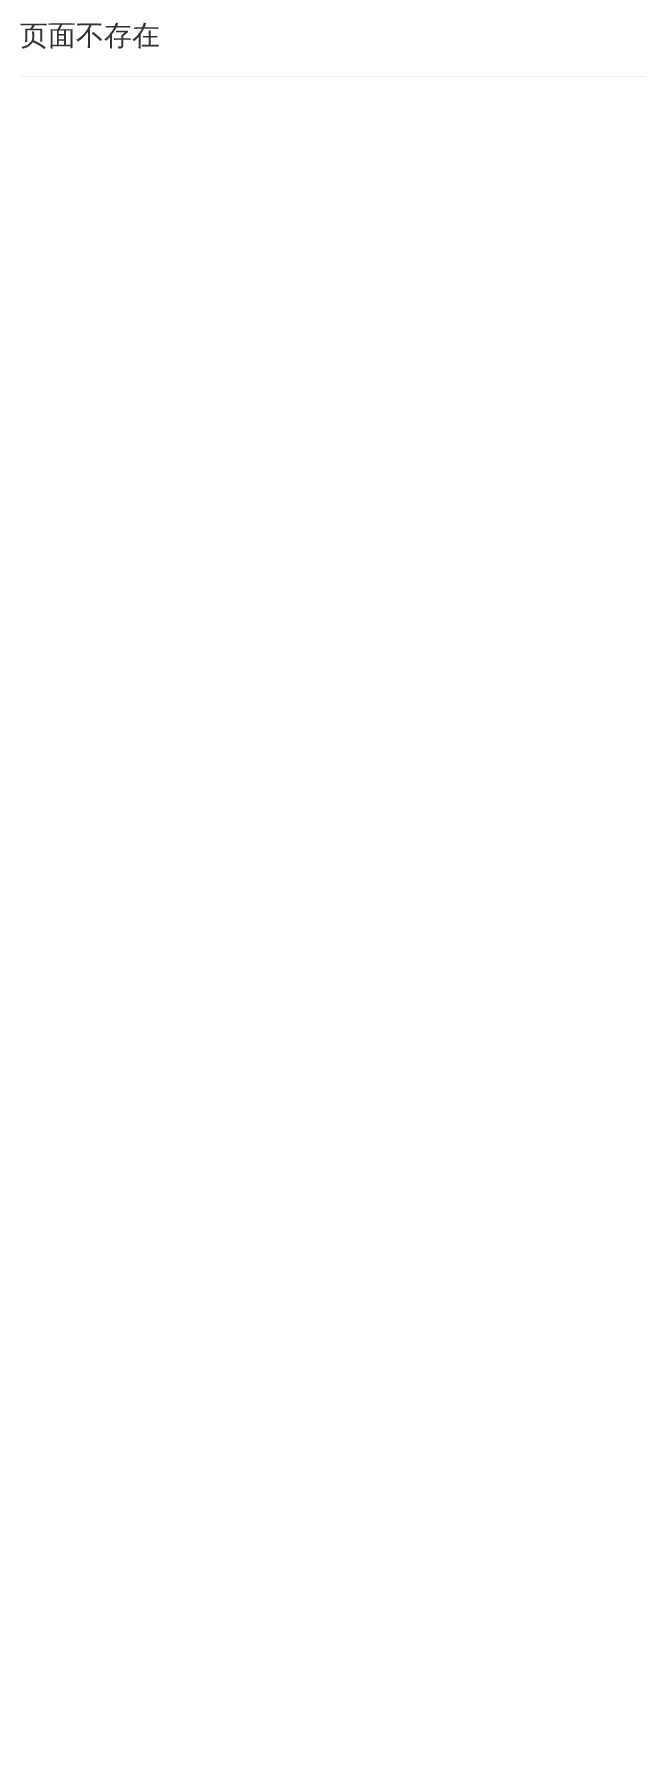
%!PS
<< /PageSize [666 1782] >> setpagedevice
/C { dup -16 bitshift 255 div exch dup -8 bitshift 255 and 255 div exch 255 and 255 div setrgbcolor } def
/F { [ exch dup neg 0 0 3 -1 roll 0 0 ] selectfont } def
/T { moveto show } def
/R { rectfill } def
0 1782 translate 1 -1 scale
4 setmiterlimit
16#FFFFFF C
0 0 666 1782 R
/WenQuanYiZenHei-Medium 28 F
16#333333 C
(页面不存在) 20 45 T
16#EEEEEE C
20 76 626 1 R
showpage
